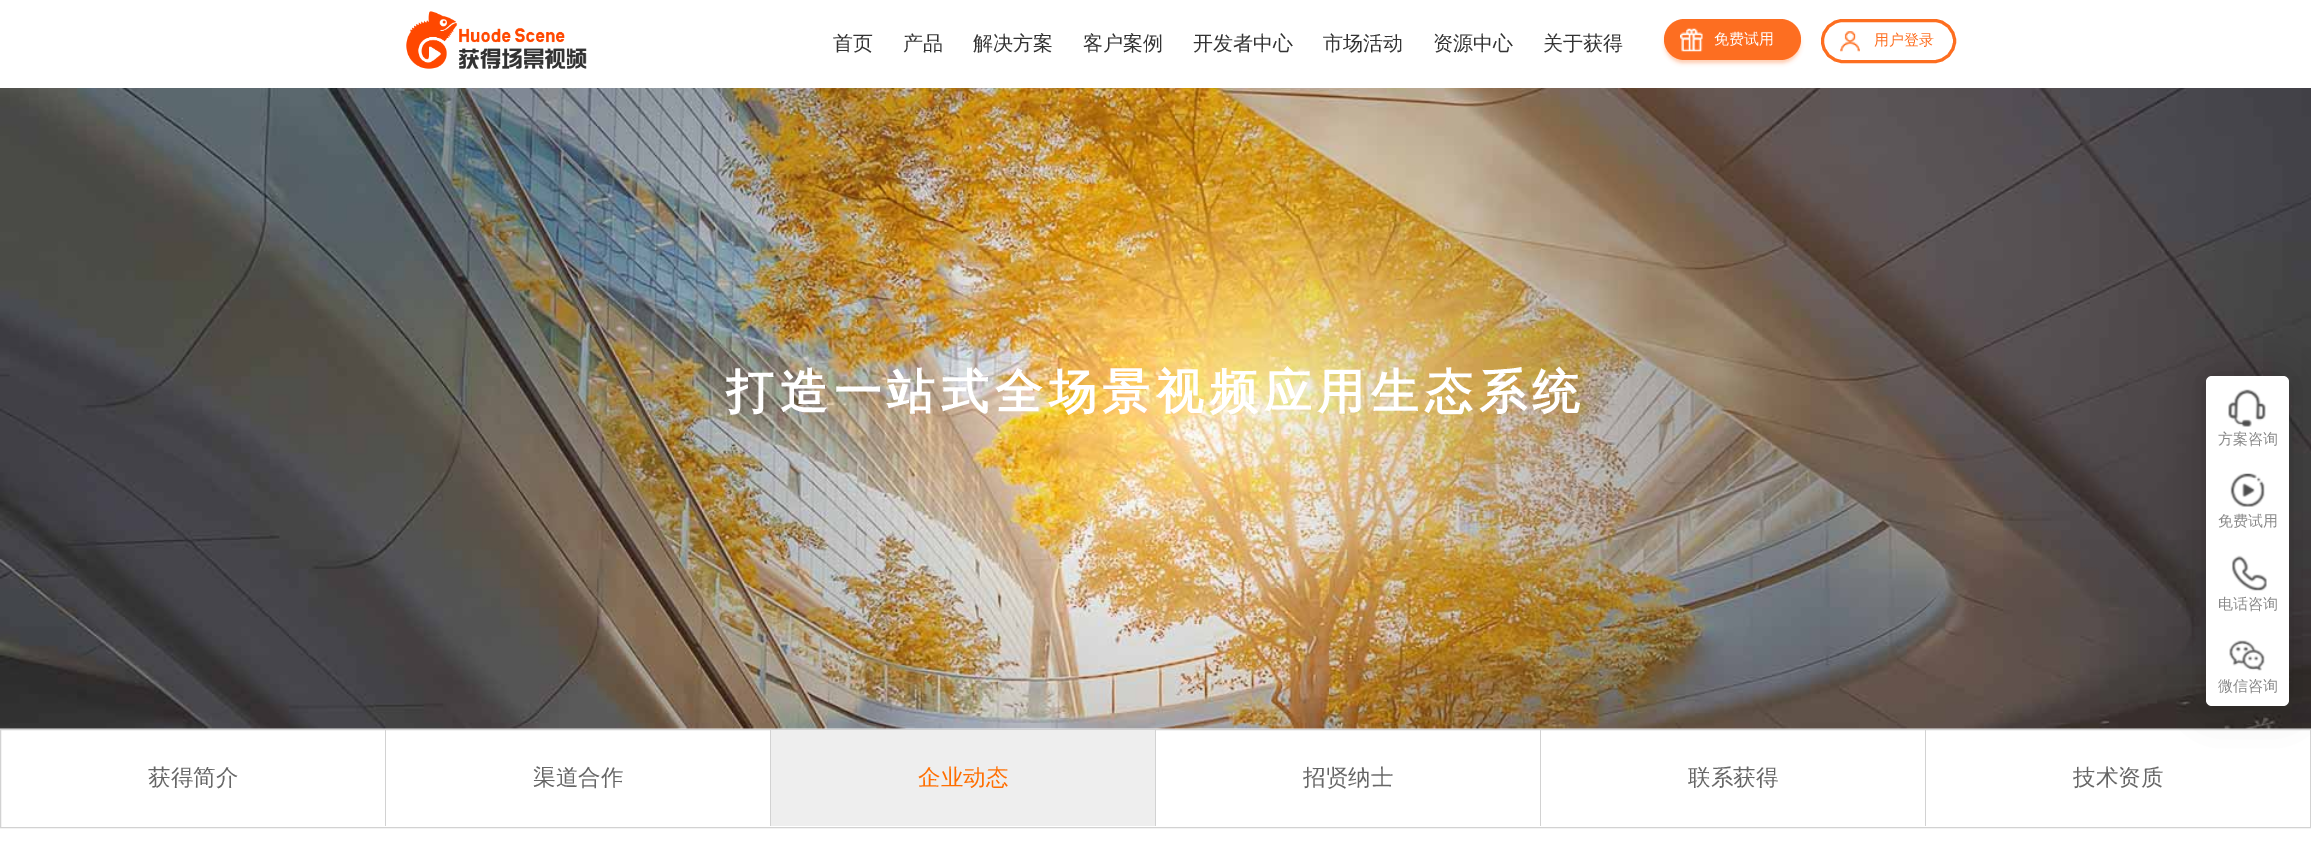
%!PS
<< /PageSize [2311 859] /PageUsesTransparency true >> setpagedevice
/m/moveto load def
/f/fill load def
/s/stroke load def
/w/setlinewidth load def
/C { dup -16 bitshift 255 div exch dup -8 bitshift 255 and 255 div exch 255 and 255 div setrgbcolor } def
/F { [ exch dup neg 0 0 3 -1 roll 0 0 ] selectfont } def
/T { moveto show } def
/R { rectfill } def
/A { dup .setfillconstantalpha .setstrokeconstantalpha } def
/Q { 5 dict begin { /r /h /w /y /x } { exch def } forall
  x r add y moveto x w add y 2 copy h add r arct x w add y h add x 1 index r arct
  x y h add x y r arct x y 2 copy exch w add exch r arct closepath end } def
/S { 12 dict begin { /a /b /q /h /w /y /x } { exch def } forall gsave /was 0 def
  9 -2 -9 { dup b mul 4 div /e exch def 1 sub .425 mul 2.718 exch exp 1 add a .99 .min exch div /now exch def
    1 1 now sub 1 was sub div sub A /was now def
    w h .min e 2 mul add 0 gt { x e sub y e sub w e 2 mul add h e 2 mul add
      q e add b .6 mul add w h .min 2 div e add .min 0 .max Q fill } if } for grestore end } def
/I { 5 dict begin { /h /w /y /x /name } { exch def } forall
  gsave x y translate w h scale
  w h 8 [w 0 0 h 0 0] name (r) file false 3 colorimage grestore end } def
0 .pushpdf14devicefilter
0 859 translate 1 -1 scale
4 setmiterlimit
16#FFFFFF C
0 0 2311 859 R
(1.rgb) 406 11 181 58 I
/WenQuanYiZenHei-Medium 20 F
16#333333 C
(首页) 833 50 T
(产品) 903 50 T
(解决方案) 973 50 T
(客户案例) 1083 50 T
(开发者中心) 1193 50 T
(市场活动) 1323 50 T
(资源中心) 1433 50 T
(关于获得) 1543 50 T
16#FD6E21 C
1665 24 135 39 19.5 2 .35 S
1664 19 137 41 20.5 Q f
(2.rgb) 1680 28 23 24 I
/WenQuanYiZenHei-Medium 15 F
16#FFFFFF C
(免费试用) 1714 44 T
(3.rgb) 1840 31 20 21 I
16#FD6E20 C
3 w
1822.5 20.5 132 41 20.5 Q s
(用户登录) 1874 45 T
(4.rgb) 0 88 2311 641 I
/WenQuanYiZenHei-Bold 47.5 F
16#FFFFFF C
726 408 m 6.25 0 (打造一站式全场景视频应用生态系统) ashow
16#D2D2D2 C
1 w
.5 729.5 2310 98 rectstroke
16#000000 C
2206 376 83 330 6 19 .2 S
16#FFFFFF C
2206 376 83 330 6 Q f
(5.rgb) 2228 389 38 38 I
/WenQuanYiZenHei-Medium 15 F
16#888888 C
(方案咨询) 2218 444 T
(6.rgb) 2230 473 35 34 I
(免费试用) 2218 526 T
(7.rgb) 2231 555 36 36 I
(电话咨询) 2218 609 T
(8.rgb) 2229 640 36 31 I
(微信咨询) 2218 691 T
16#D2D2D2 C
385 730 1 96 R
/WenQuanYiZenHei-Medium 22.5 F
16#666666 C
(获得简介) 148 785 T
16#D2D2D2 C
770 730 1 96 R
16#666666 C
(渠道合作) 533 785 T
16#EEEEEE C
771 730 384 96 R
16#D2D2D2 C
1155 730 1 96 R
16#FF6E00 C
(企业动态) 918 785 T
16#D2D2D2 C
1540 730 1 96 R
16#666666 C
(招贤纳士) 1303 785 T
16#D2D2D2 C
1925 730 1 96 R
16#666666 C
(联系获得) 1688 785 T
(技术资质) 2073 785 T
.poppdf14devicefilter showpage
